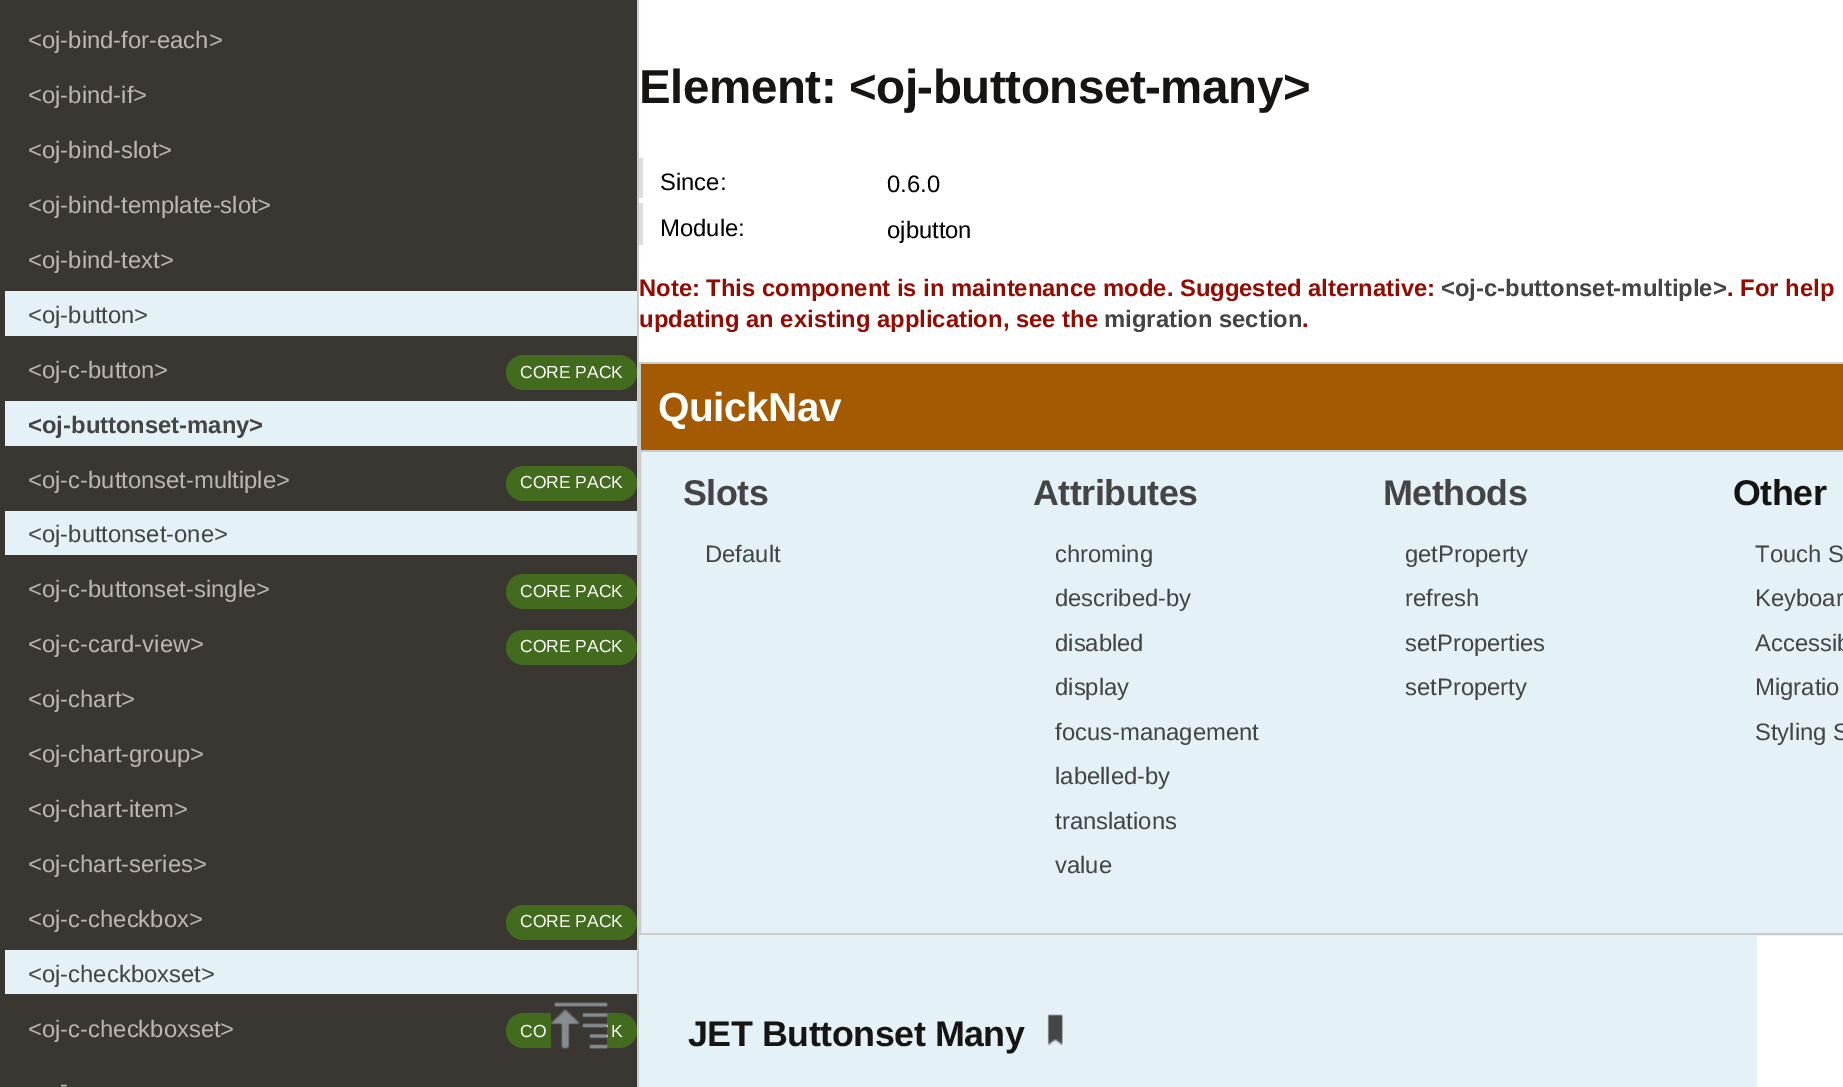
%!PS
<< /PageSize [1843 1087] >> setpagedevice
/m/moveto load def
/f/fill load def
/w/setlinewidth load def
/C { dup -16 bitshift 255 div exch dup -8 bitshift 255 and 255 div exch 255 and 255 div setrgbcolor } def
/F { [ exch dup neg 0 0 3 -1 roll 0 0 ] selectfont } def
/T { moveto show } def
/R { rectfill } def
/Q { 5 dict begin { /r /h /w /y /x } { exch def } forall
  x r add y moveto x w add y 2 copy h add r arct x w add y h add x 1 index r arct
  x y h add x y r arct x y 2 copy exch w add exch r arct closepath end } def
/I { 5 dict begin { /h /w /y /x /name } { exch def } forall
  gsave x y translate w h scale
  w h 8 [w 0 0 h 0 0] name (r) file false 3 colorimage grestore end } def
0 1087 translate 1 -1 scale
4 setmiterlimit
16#FFFFFF C
0 0 1843 1087 R
16#3A3631 C
0 0 637 1087 R
16#CCCCCC C
637 0 2 1087 R
/LiberationSans-Regular 23.8 F
16#BCB6B1 C
(<oj-bind-for-each>) 28 48 T
(<oj-bind-if>) 28 103 T
(<oj-bind-slot>) 28 158 T
(<oj-bind-template-slot>) 28 213 T
(<oj-bind-text>) 28 268 T
16#E4F1F7 C
5 291 632 45 R
16#444444 C
(<oj-button>) 28 323 T
16#BCB6B1 C
(<oj-c-button>) 28 378 T
16#436B1D C
506 355 131 35 17.5 Q f
/LiberationSans-Regular 17.5 F
16#FFFFFF C
(CORE PACK) 520 378 T
16#E4F1F7 C
5 401 632 45 R
/LiberationSans-Bold 23.8 F
16#444444 C
(<oj-buttonset-many>) 28 433 T
/LiberationSans-Regular 23.8 F
16#BCB6B1 C
(<oj-c-buttonset-multiple>) 28 488 T
16#436B1D C
506 466 131 35 17.5 Q f
/LiberationSans-Regular 17.5 F
16#FFFFFF C
(CORE PACK) 520 488 T
16#E4F1F7 C
5 511 632 44 R
/LiberationSans-Regular 23.8 F
16#444444 C
(<oj-buttonset-one>) 28 542 T
16#BCB6B1 C
(<oj-c-buttonset-single>) 28 597 T
16#436B1D C
506 574 131 35 17.5 Q f
/LiberationSans-Regular 17.5 F
16#FFFFFF C
(CORE PACK) 520 597 T
/LiberationSans-Regular 23.8 F
16#BCB6B1 C
(<oj-c-card-view>) 28 652 T
16#436B1D C
506 630 131 35 17.5 Q f
/LiberationSans-Regular 17.5 F
16#FFFFFF C
(CORE PACK) 520 652 T
/LiberationSans-Regular 23.8 F
16#BCB6B1 C
(<oj-chart>) 28 707 T
(<oj-chart-group>) 28 762 T
(<oj-chart-item>) 28 817 T
(<oj-chart-series>) 28 872 T
(<oj-c-checkbox>) 28 927 T
16#436B1D C
506 905 131 35 17.5 Q f
/LiberationSans-Regular 17.5 F
16#FFFFFF C
(CORE PACK) 520 927 T
16#E4F1F7 C
5 950 632 44 R
/LiberationSans-Regular 23.8 F
16#444444 C
(<oj-checkboxset>) 28 982 T
16#BCB6B1 C
(<oj-c-checkboxset>) 28 1037 T
16#436B1D C
506 1013 131 35 17.5 Q f
/LiberationSans-Regular 17.5 F
16#FFFFFF C
(CO) 520 1037 T
(K) 611 1037 T
/LiberationSans-Regular 23.8 F
16#BCB6B1 C
(-) 60 1092 T
16#3A3631 C
551 1013 56 35 R
(1.rgb) 551 1002 57 47 I
/LiberationSans-Bold 47.6 F
16#161513 C
639 103 m -.5 0 (Element: <oj-buttonset-many>) ashow
16#DDDDDD C
639 158 4 40 R
/LiberationSans-Regular 23.8 F
16#000000 C
(Since:) 660 190 T
(0.6.0) 887 192 T
16#DDDDDD C
639 203 4 42 R
16#000000 C
(Module:) 660 236 T
(ojbutton) 887 238 T
/LiberationSans-Bold 23.8 F
16#950B02 C
(Note: This component is in maintenance mode. Suggested alternative:) 639 296 T
16#444444 C
(<oj-c-buttonset-multiple>) 1441 296 T
16#950B02 C
(. For help) 1727 296 T
(updating an existing application, see the) 639 327 T
16#444444 C
(migration section) 1104 327 T
16#950B02 C
(.) 1302 327 T
16#E4F1F7 C
641 452 1202 481 R
16#CCCCCC C
2 w
640 363 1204 571 rectstroke
16#A35A00 C
641 364 1202 86 R
16#CCCCCC C
641 450 1202 2 R
/LiberationSans-Bold 40.5 F
16#FFFFFF C
658 421 m -.5 0 (QuickNav) ashow
/LiberationSans-Bold 35.75 F
16#444444 C
683 505 m -.4 0 (Slots) ashow
/LiberationSans-Regular 23.8 F
(Default) 705 562 T
/LiberationSans-Bold 35.75 F
1033 505 m -.4 0 (Attributes) ashow
/LiberationSans-Regular 23.8 F
(chroming) 1055 562 T
(described-by) 1055 606 T
(disabled) 1055 651 T
(display) 1055 695 T
(focus-management) 1055 740 T
(labelled-by) 1055 784 T
(translations) 1055 829 T
(value) 1055 873 T
/LiberationSans-Bold 35.75 F
1383 505 m -.4 0 (Methods) ashow
/LiberationSans-Regular 23.8 F
(getProperty) 1405 562 T
(refresh) 1405 606 T
(setProperties) 1405 651 T
(setProperty) 1405 695 T
/LiberationSans-Bold 35.75 F
16#161513 C
1733 505 m -.4 0 (Other) ashow
/LiberationSans-Regular 23.8 F
16#444444 C
(Touch S) 1755 562 T
(Keyboar) 1755 606 T
(Accessib) 1755 651 T
(Migratio) 1755 695 T
(Styling S) 1755 740 T
16#E4F1F7 C
639 935 1118 152 R
/LiberationSans-Bold 35.75 F
16#161513 C
688 1046 m -.4 0 (JET Buttonset Many) ashow
(2.rgb) 1047 1014 16 32 I
showpage
